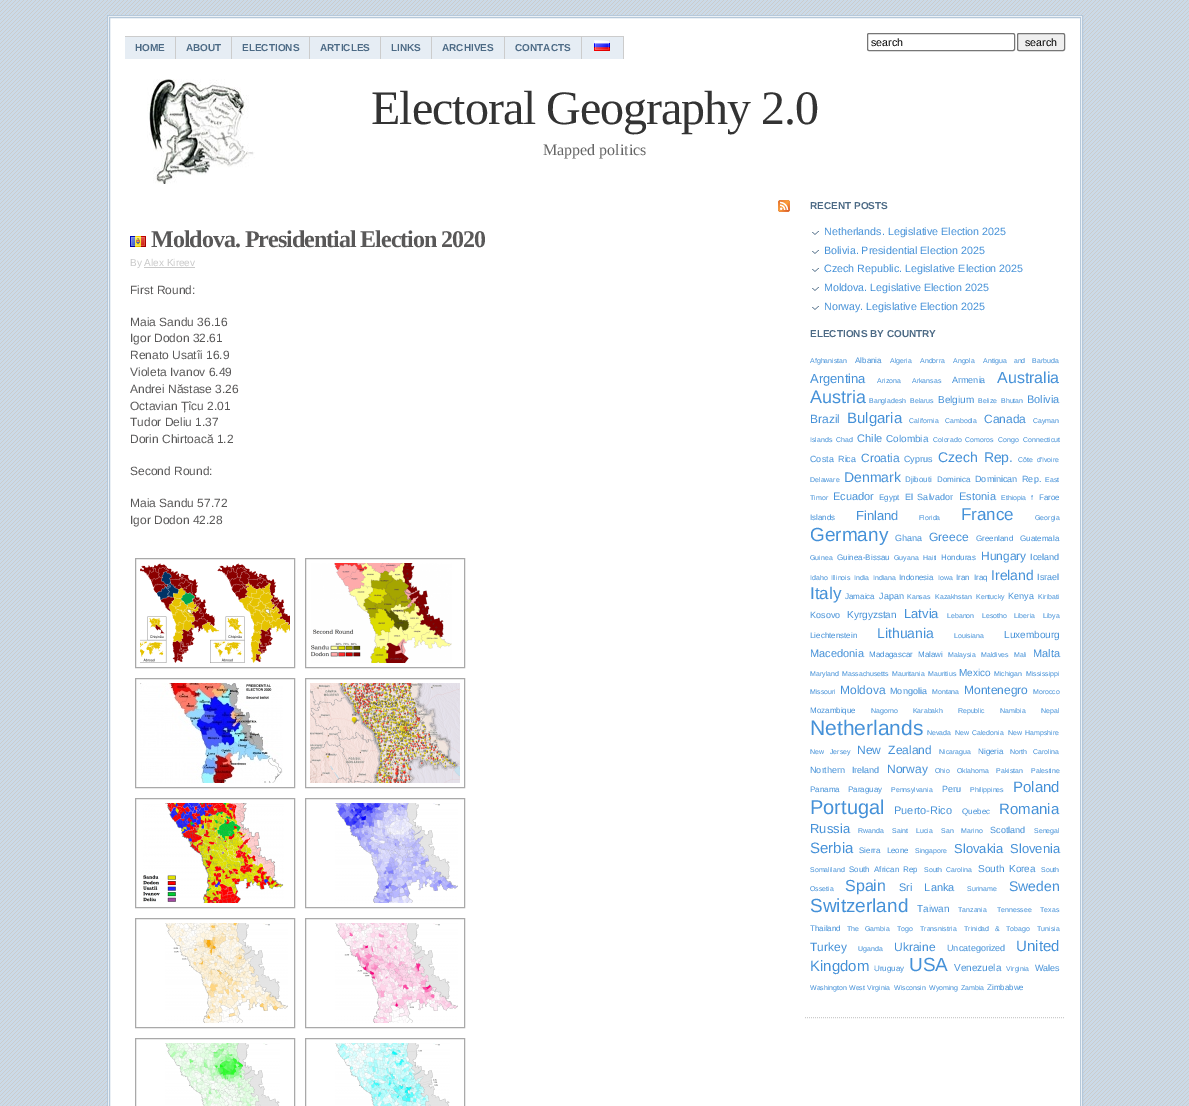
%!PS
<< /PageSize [1189 1106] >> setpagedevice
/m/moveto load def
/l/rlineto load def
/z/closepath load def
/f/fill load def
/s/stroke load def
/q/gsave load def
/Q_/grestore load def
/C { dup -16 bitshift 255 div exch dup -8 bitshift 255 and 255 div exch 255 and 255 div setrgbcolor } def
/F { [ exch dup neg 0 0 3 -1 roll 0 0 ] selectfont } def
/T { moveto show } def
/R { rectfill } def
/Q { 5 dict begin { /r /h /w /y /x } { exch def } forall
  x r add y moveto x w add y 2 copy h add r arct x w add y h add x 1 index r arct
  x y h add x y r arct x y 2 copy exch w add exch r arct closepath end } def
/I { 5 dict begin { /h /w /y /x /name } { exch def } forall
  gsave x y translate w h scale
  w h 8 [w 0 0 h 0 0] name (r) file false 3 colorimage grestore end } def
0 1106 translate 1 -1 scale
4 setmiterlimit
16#CBDAE8 C
0 0 1189 1106 R
(1.rgb) 0 0 1189 1106 I
16#FFFFFF C
107.5 15.5 m 975 0 l 0 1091 l -975 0 l z q f Q_
16#B5C8DA C
s
109.5 17.5 971 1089 rectstroke
16#767676 C
867.5 33.5 147 17 1.5 Q s
/LiberationSans-Regular 10.7 F
16#000000 C
(search) 871 46 T
16#EFEFEF C
1017.5 33.5 47 17 1.5 Q q f Q_
16#767676 C
s
16#000000 C
(search) 1025 46 T
16#E6EDF4 C
125 37 50 22 R
16#CCCCCC C
125 36 499 1 R
175 36 1 23 R
/LiberationSans-Bold 10 F
16#4C6A85 C
(HOME) 135 51 T
16#E6EDF4 C
176 37 55 22 R
16#CCCCCC C
231 36 1 23 R
16#4C6A85 C
(ABOUT) 186 51 T
16#E6EDF4 C
232 37 77 22 R
16#CCCCCC C
309 36 1 23 R
16#4C6A85 C
(ELECTIONS) 242 51 T
16#E6EDF4 C
310 37 70 22 R
16#CCCCCC C
380 36 1 23 R
16#4C6A85 C
(ARTICLES) 320 51 T
16#E6EDF4 C
381 37 50 22 R
16#CCCCCC C
431 36 1 23 R
16#4C6A85 C
(LINKS) 391 51 T
16#E6EDF4 C
432 37 72 22 R
16#CCCCCC C
504 36 1 23 R
16#4C6A85 C
(ARCHIVES) 442 51 T
16#E6EDF4 C
505 37 76 22 R
16#CCCCCC C
581 36 1 23 R
16#4C6A85 C
(CONTACTS) 515 51 T
16#E6EDF4 C
582 37 41 22 R
16#CCCCCC C
623 36 1 23 R
(2.rgb) 594 40 16 11 I
(3.rgb) 147 79 108 105 I
/LiberationSerif-Regular 48 F
16#333333 C
371 124 m -1 0 (Electoral Geography 2.0) ashow
/LiberationSerif-Regular 16 F
16#666666 C
(Mapped politics) 543 155 T
(4.rgb) 778 200 12 12 I
(5.rgb) 130 236 16 11 I
/LiberationSerif-Bold 24 F
16#595858 C
151 247 m -1 0 (Moldova. Presidential Election 2020) ashow
/LiberationSans-Regular 10 F
16#C9C9C9 C
(By Alex Kireev) 130 266 T
144 267 51 1 R
/LiberationSans-Regular 12 F
16#595858 C
(First Round:) 130 294 T
(Maia Sandu 36.16) 130 326 T
(Igor Dodon 32.61) 130 342 T
(Renato Usatîi 16.9) 130 359 T
(Violeta Ivanov 6.49) 130 376 T
(Andrei Năstase 3.26) 130 393 T
(Octavian Țîcu 2.01) 130 410 T
(Tudor Deliu 1.37) 130 426 T
(Dorin Chirtoacă 1.2) 130 443 T
(Second Round:) 130 475 T
(Maia Sandu 57.72) 130 507 T
(Igor Dodon 42.28) 130 524 T
16#A9A9A9 C
135.5 558.5 159 109 rectstroke
(6.rgb) 140 563 150 100 I
305.5 558.5 159 109 rectstroke
(7.rgb) 311 563 141 100 I
135.5 678.5 159 109 rectstroke
(8.rgb) 140 683 143 100 I
305.5 678.5 159 109 rectstroke
(9.rgb) 310 683 150 100 I
135.5 798.5 159 109 rectstroke
(10.rgb) 143 803 141 100 I
305.5 798.5 159 109 rectstroke
(11.rgb) 335 803 123 100 I
135.5 918.5 159 109 rectstroke
(12.rgb) 165 923 123 100 I
305.5 918.5 159 109 rectstroke
(13.rgb) 335 923 123 100 I
135.5 1038.5 159 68 rectstroke
(14.rgb) 165 1043 115 63 I
305.5 1038.5 159 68 rectstroke
(15.rgb) 335 1043 115 63 I
16#CCCCCC C
[1 1] 0 setdash
805 1017.5 m 260 0 l s
/LiberationSans-Bold 10 F
16#4C6A85 C
(RECENT POSTS) 810 209 T
(16.rgb) 812 231 7 4 I
/LiberationSans-Regular 10.7 F
16#4591D8 C
(Netherlands. Legislative Election 2025) 824 235 T
(16.rgb) 812 250 7 4 I
(Bolivia. Presidential Election 2025) 824 254 T
(16.rgb) 812 268 7 4 I
(Czech Republic. Legislative Election 2025) 824 272 T
(16.rgb) 812 287 7 4 I
(Moldova. Legislative Election 2025) 824 291 T
(16.rgb) 812 306 7 4 I
(Norway. Legislative Election 2025) 824 310 T
/LiberationSans-Bold 10 F
16#4C6A85 C
(ELECTIONS BY COUNTRY) 810 337 T
/LiberationSans-Regular 7 F
16#4591D8 C
(Afghanistan) 810 363 T
/LiberationSans-Regular 8 F
(Albania) 855 363 T
/LiberationSans-Regular 7 F
(Algeria) 890 363 T
(Andorra) 920 363 T
(Angola) 953 363 T
983 363 m 5 0 32 (Antigua and Barbudа) widthshow
/LiberationSans-Regular 13 F
(Argentina) 810 383 T
/LiberationSans-Regular 7 F
(Arizona) 877 383 T
(Arkansas) 912 383 T
/LiberationSans-Regular 9 F
(Armenia) 952 383 T
/LiberationSans-Regular 16 F
(Australia) 997 383 T
/LiberationSans-Regular 18 F
(Austria) 810 403 T
/LiberationSans-Regular 7 F
(Bangladesh) 869 403 T
(Belarus) 910 403 T
/LiberationSans-Regular 10 F
(Belgium) 938 403 T
/LiberationSans-Regular 7 F
(Belize) 978 403 T
(Bhutan) 1001 403 T
/LiberationSans-Regular 11 F
(Bolivia) 1027 403 T
/LiberationSans-Regular 12 F
(Brazil) 810 423 T
/LiberationSans-Regular 15 F
(Bulgaria) 847 423 T
/LiberationSans-Regular 7 F
(California) 909 423 T
(Cambodia) 945 423 T
/LiberationSans-Regular 12 F
(Canada) 984 423 T
/LiberationSans-Regular 7 F
(Cayman) 1033 423 T
(Islands) 810 442 T
(Chad) 836 442 T
/LiberationSans-Regular 11 F
(Chile) 857 442 T
/LiberationSans-Regular 10 F
(Colombia) 886 442 T
/LiberationSans-Regular 7 F
(Colorado) 933 442 T
(Comoros) 965 442 T
(Congo) 998 442 T
(Connecticut) 1023 442 T
/LiberationSans-Regular 9 F
810 462 m 2 0 32 (Costa Rica) widthshow
/LiberationSans-Regular 12 F
(Croatia) 861 462 T
/LiberationSans-Regular 9 F
(Cyprus) 904 462 T
/LiberationSans-Regular 14 F
938 462 m 2 0 32 (Czech Rep.) widthshow
/LiberationSans-Regular 7 F
1018 462 m 2 0 32 (Côte d'Ivoire) widthshow
(Delaware) 810 482 T
/LiberationSans-Regular 14 F
(Denmark) 844 482 T
/LiberationSans-Regular 8 F
(Djibouti) 905 482 T
(Dominica) 937 482 T
/LiberationSans-Regular 9 F
975 482 m 2 0 32 (Dominican Rep.) widthshow
/LiberationSans-Regular 7 F
(East) 1045 482 T
(Timor) 810 500 T
/LiberationSans-Regular 11 F
(Ecuador) 833 500 T
/LiberationSans-Regular 8 F
(Egypt) 879 500 T
/LiberationSans-Regular 9 F
905 500 m 2 0 32 (El Salvador) widthshow
/LiberationSans-Regular 11 F
(Estonia) 959 500 T
/LiberationSans-Regular 7 F
(Ethiopia) 1001 500 T
(f) 1031 500 T
/LiberationSans-Regular 8 F
(Faroe) 1039 500 T
(Islands) 810 520 T
/LiberationSans-Regular 13 F
(Finland) 856 520 T
/LiberationSans-Regular 7 F
(Florida) 919 520 T
/LiberationSans-Regular 17 F
(France) 961 520 T
/LiberationSans-Regular 7 F
(Georgia) 1035 520 T
/LiberationSans-Regular 19 F
(Germany) 810 541 T
/LiberationSans-Regular 9 F
(Ghana) 895 541 T
/LiberationSans-Regular 12 F
(Greece) 929 541 T
/LiberationSans-Regular 8 F
(Greenland) 976 541 T
(Guatemala) 1020 541 T
/LiberationSans-Regular 7 F
(Guinea) 810 560 T
/LiberationSans-Regular 8 F
(Guinea-Bissau) 837 560 T
/LiberationSans-Regular 7 F
(Guyana) 894 560 T
(Haiti) 923 560 T
/LiberationSans-Regular 8 F
(Honduras) 941 560 T
/LiberationSans-Regular 12 F
(Hungary) 981 560 T
/LiberationSans-Regular 9 F
(Iceland) 1030 560 T
/LiberationSans-Regular 7 F
(Idaho) 810 580 T
(Illinois) 831 580 T
(India) 854 580 T
(Indiana) 873 580 T
/LiberationSans-Regular 8 F
(Indonesia) 899 580 T
/LiberationSans-Regular 7 F
(Iowa) 938 580 T
/LiberationSans-Regular 8 F
(Iran) 956 580 T
(Iraq) 974 580 T
/LiberationSans-Regular 14 F
(Ireland) 991 580 T
/LiberationSans-Regular 9 F
(Israel) 1037 580 T
/LiberationSans-Regular 17 F
(Italy) 810 599 T
/LiberationSans-Regular 8 F
(Jamaica) 845 599 T
/LiberationSans-Regular 9 F
(Japan) 879 599 T
/LiberationSans-Regular 7 F
(Kansas) 907 599 T
(Kazakhstan) 935 599 T
(Kentucky) 976 599 T
/LiberationSans-Regular 9 F
(Kenya) 1008 599 T
/LiberationSans-Regular 7 F
(Kiribati) 1038 599 T
/LiberationSans-Regular 9 F
(Kosovo) 810 618 T
/LiberationSans-Regular 10 F
(Kyrgyzstan) 847 618 T
/LiberationSans-Regular 13 F
(Latvia) 904 618 T
/LiberationSans-Regular 7 F
(Lebanon) 947 618 T
(Lesotho) 982 618 T
(Liberia) 1014 618 T
(Libya) 1043 618 T
/LiberationSans-Regular 8 F
(Liechtenstein) 810 638 T
/LiberationSans-Regular 14 F
(Lithuania) 877 638 T
/LiberationSans-Regular 7 F
(Louisiana) 954 638 T
/LiberationSans-Regular 10 F
(Luxembourg) 1004 638 T
/LiberationSans-Regular 11 F
(Macedonia) 810 657 T
/LiberationSans-Regular 8 F
(Madagascar) 869 657 T
(Malawi) 918 657 T
/LiberationSans-Regular 7 F
(Malaysia) 948 657 T
(Maldives) 981 657 T
(Mali) 1014 657 T
/LiberationSans-Regular 11 F
(Malta) 1033 657 T
/LiberationSans-Regular 7 F
(Maryland) 810 676 T
(Massachusetts) 842 676 T
(Mauritania) 892 676 T
(Mauritius) 928 676 T
/LiberationSans-Regular 10 F
(Mexico) 959 676 T
/LiberationSans-Regular 7 F
(Michigan) 994 676 T
(Mississippi) 1026 676 T
(Missouri) 810 694 T
/LiberationSans-Regular 12 F
(Moldova) 840 694 T
/LiberationSans-Regular 9 F
(Mongolia) 890 694 T
/LiberationSans-Regular 7 F
(Montana) 932 694 T
/LiberationSans-Regular 12 F
(Montenegro) 964 694 T
/LiberationSans-Regular 7 F
(Morocco) 1033 694 T
/LiberationSans-Regular 8 F
(Mozambique) 810 713 T
/LiberationSans-Regular 7 F
871 713 m 13 0 32 (Nagorno Karabakh Republic) widthshow
(Namibia) 1000 713 T
(Nepal) 1041 713 T
/LiberationSans-Regular 21 F
(Netherlands) 810 735 T
/LiberationSans-Regular 7 F
(Nevada) 927 735 T
955 735 m 1 0 32 (New Caledonia) widthshow
1008 735 m 1 0 32 (New Hampshire) widthshow
810 754 m 4 0 32 (New Jersey) widthshow
/LiberationSans-Regular 12 F
857 754 m 4 0 32 (New Zealand) widthshow
/LiberationSans-Regular 7 F
(Nicaragua) 939 754 T
/LiberationSans-Regular 8 F
(Nigeria) 978 754 T
/LiberationSans-Regular 7 F
1010 754 m 4 0 32 (North Carolina) widthshow
/LiberationSans-Regular 9 F
810 773 m 4 0 32 (Northern Ireland) widthshow
/LiberationSans-Regular 12 F
(Norway) 887 773 T
/LiberationSans-Regular 7 F
(Ohio) 935 773 T
(Oklahoma) 957 773 T
(Pakistan) 996 773 T
(Palestine) 1031 773 T
/LiberationSans-Regular 8 F
(Panama) 810 792 T
(Paraguay) 848 792 T
/LiberationSans-Regular 7 F
(Pennsylvania) 891 792 T
/LiberationSans-Regular 9 F
(Peru) 942 792 T
/LiberationSans-Regular 7 F
(Philippines) 970 792 T
/LiberationSans-Regular 15 F
(Poland) 1013 792 T
/LiberationSans-Regular 20 F
(Portugal) 810 814 T
/LiberationSans-Regular 11 F
(Puerto-Rico) 894 814 T
/LiberationSans-Regular 8 F
(Quebec) 962 814 T
/LiberationSans-Regular 15 F
(Romania) 999 814 T
/LiberationSans-Regular 13 F
(Russia) 810 833 T
/LiberationSans-Regular 7 F
(Rwanda) 858 833 T
892 833 m 6 0 32 (Saint Lucia) widthshow
941 833 m 6 0 32 (San Marino) widthshow
/LiberationSans-Regular 9 F
(Scotland) 990 833 T
/LiberationSans-Regular 7 F
(Senegal) 1034 833 T
/LiberationSans-Regular 15 F
(Serbia) 810 853 T
/LiberationSans-Regular 8 F
859 853 m 4 0 32 (Sierra Leone) widthshow
/LiberationSans-Regular 7 F
(Singapore) 915 853 T
/LiberationSans-Regular 13 F
(Slovakia) 954 853 T
(Slovenia) 1010 853 T
/LiberationSans-Regular 7 F
(Somaliland) 810 872 T
/LiberationSans-Regular 8 F
849 872 m 2 0 32 (South African Rep) widthshow
/LiberationSans-Regular 7 F
924 872 m 2 0 32 (South Carolina) widthshow
/LiberationSans-Regular 10 F
978 872 m 2 0 32 (South Korea) widthshow
/LiberationSans-Regular 7 F
(South) 1041 872 T
(Ossetia) 810 891 T
/LiberationSans-Regular 16 F
(Spain) 845 891 T
/LiberationSans-Regular 11 F
899 891 m 9 0 32 (Sri Lanka) widthshow
/LiberationSans-Regular 7 F
(Suriname) 967 891 T
/LiberationSans-Regular 14 F
(Sweden) 1009 891 T
/LiberationSans-Regular 19 F
(Switzerland) 810 912 T
/LiberationSans-Regular 10 F
(Taiwan) 917 912 T
/LiberationSans-Regular 7 F
(Tanzania) 958 912 T
(Tennessee) 997 912 T
(Texas) 1040 912 T
/LiberationSans-Regular 8 F
(Thailand) 810 931 T
/LiberationSans-Regular 7 F
847 931 m 4 0 32 (The Gambia) widthshow
(Togo) 897 931 T
(Transnistria) 920 931 T
964 931 m 4 0 32 (Trinidad & Tobago) widthshow
(Tunisia) 1037 931 T
/LiberationSans-Regular 12 F
(Turkey) 810 951 T
/LiberationSans-Regular 7 F
(Uganda) 858 951 T
/LiberationSans-Regular 12 F
(Ukraine) 894 951 T
/LiberationSans-Regular 9 F
(Uncategorized) 947 951 T
/LiberationSans-Regular 15 F
(United) 1016 951 T
(Kingdom) 810 971 T
/LiberationSans-Regular 8 F
(Uruguay) 874 971 T
/LiberationSans-Regular 19 F
(USA) 909 971 T
/LiberationSans-Regular 10 F
(Venezuela) 954 971 T
/LiberationSans-Regular 7 F
(Virginia) 1006 971 T
/LiberationSans-Regular 9 F
(Wales) 1035 971 T
/LiberationSans-Regular 7 F
(Washington) 810 990 T
(West Virginia) 849 990 T
(Wisconsin) 894 990 T
(Wyoming) 929 990 T
(Zambia) 961 990 T
/LiberationSans-Regular 8 F
(Zimbabwe) 987 990 T
showpage
